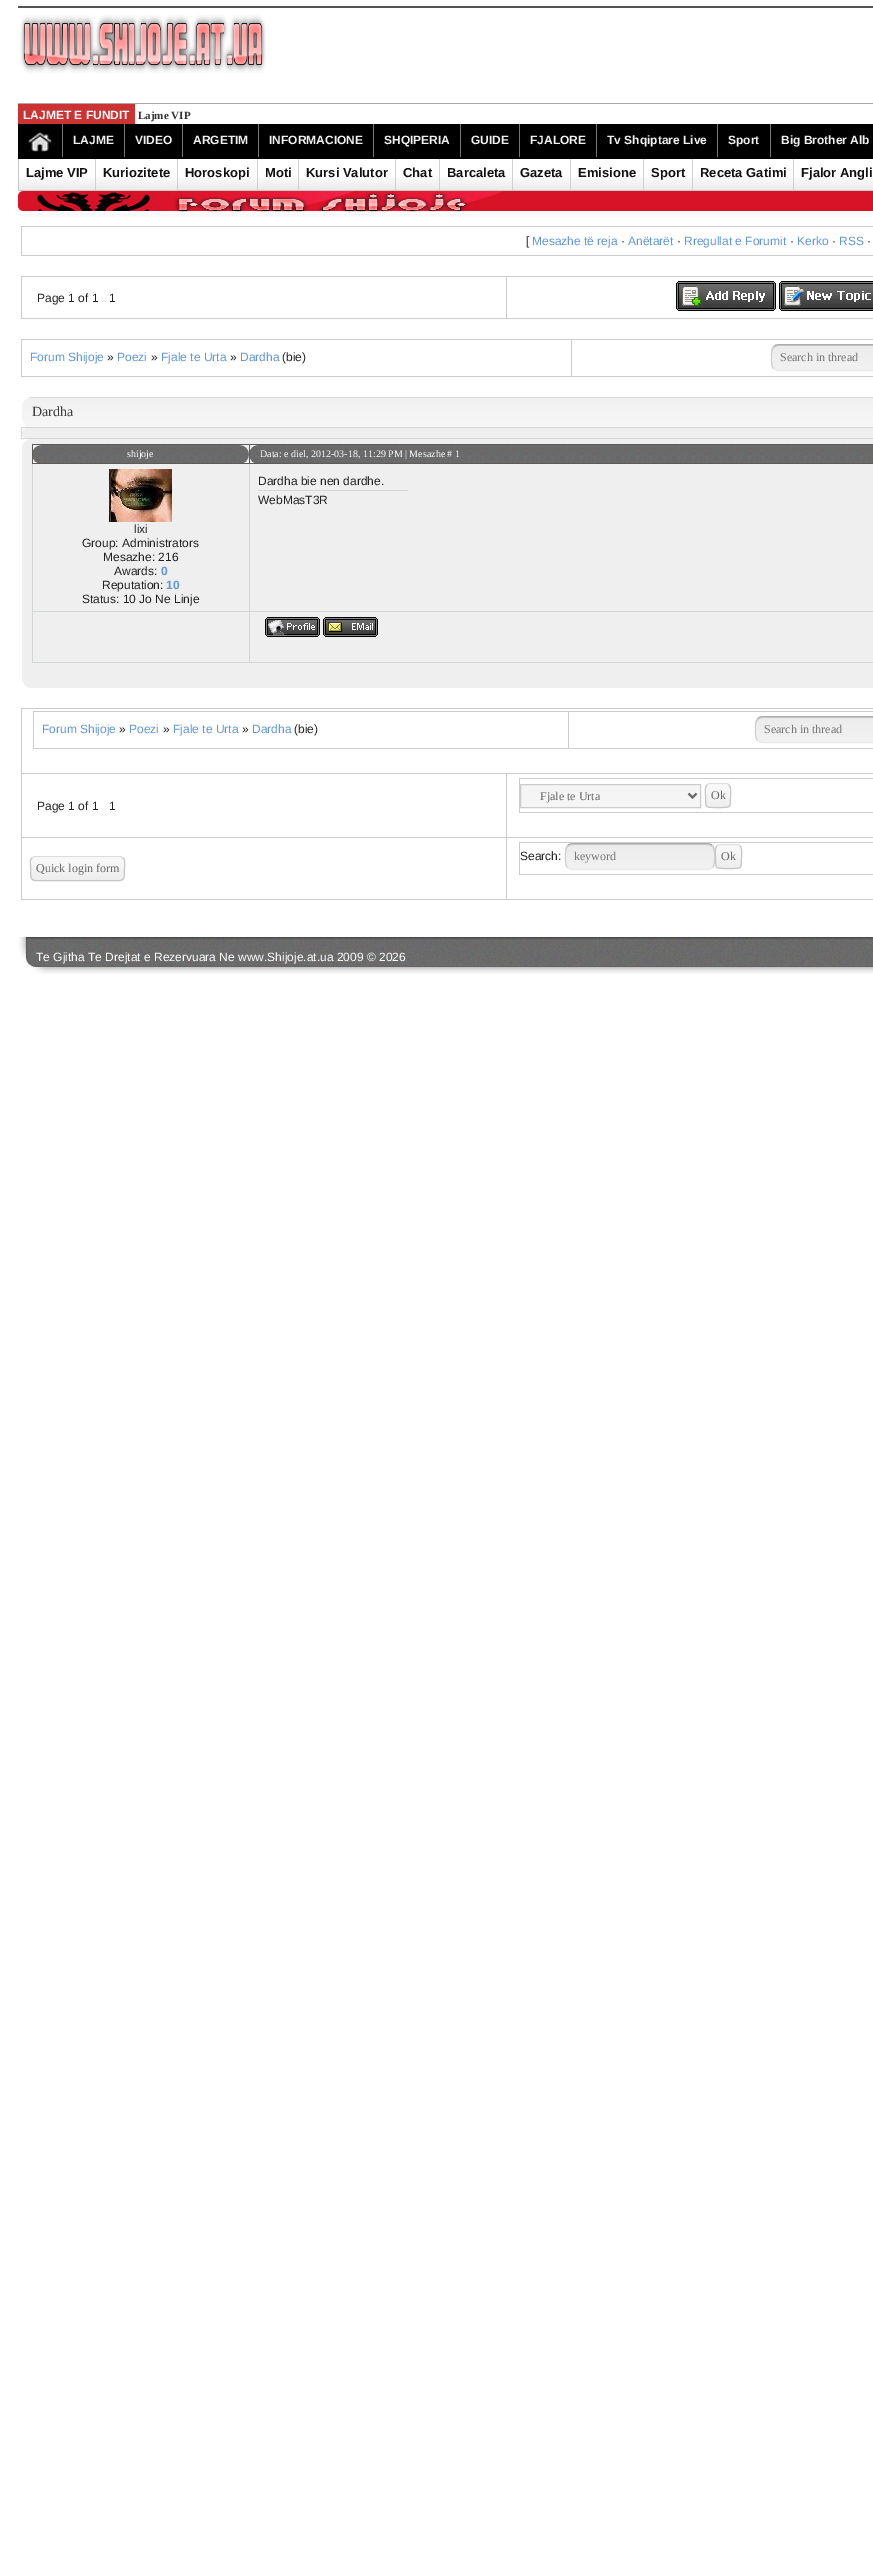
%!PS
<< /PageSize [873 2569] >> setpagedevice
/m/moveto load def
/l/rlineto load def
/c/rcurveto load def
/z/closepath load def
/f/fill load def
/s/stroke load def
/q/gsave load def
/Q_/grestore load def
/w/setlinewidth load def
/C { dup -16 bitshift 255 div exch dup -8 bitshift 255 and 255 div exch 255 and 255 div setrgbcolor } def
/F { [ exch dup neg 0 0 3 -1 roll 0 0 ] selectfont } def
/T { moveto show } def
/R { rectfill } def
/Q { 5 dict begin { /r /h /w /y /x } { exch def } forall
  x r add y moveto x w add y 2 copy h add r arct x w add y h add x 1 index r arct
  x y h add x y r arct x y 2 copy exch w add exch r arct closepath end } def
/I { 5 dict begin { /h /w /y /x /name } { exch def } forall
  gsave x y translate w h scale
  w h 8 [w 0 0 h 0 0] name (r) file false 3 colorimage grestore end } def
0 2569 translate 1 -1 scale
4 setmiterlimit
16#FFFFFF C
0 0 873 2569 R
16#545454 C
18 6 855 2 R
(1.rgb) 20 15 246 58 I
16#A8A8A8 C
18 103 855 1 R
16#CC3333 C
18 104 117 20 R
/LiberationSans-Bold 12 F
16#FFFFFF C
(LAJMET E FUNDIT) 23 119 T
/LiberationSerif-Bold 11 F
16#333333 C
(Lajme VIP) 138 119 T
16#000000 C
18 124 855 35 R
16#757575 C
62 124 1 33 R
(2.rgb) 28 132 24 20 I
124 124 1 33 R
/LiberationSans-Bold 12 F
16#F1F1F1 C
(LAJME) 73 144 T
16#757575 C
182 124 1 33 R
16#F1F1F1 C
(VIDEO) 135 144 T
16#757575 C
258 124 1 33 R
16#F1F1F1 C
(ARGETIM) 193 144 T
16#757575 C
373 124 1 33 R
16#F1F1F1 C
(INFORMACIONE) 269 144 T
16#757575 C
460 124 1 33 R
16#F1F1F1 C
(SHQIPERIA) 384 144 T
16#757575 C
519 124 1 33 R
16#F1F1F1 C
(GUIDE) 471 144 T
16#757575 C
596 124 1 33 R
16#F1F1F1 C
(FJALORE) 530 144 T
16#757575 C
717 124 1 33 R
16#F1F1F1 C
(Tv Shqiptare Live) 607 144 T
16#757575 C
770 124 1 33 R
16#F1F1F1 C
(Sport) 728 144 T
(Big Brother Alb) 781 144 T
(3.rgb) 19 177 854 13 I
16#C5C8CB C
18 190 855 1 R
18 159 1 32 R
16#D0D0D0 C
95 159 1 31 R
/LiberationSans-Bold 13 F
16#111111 C
(Lajme VIP) 26 177 T
16#D0D0D0 C
177 159 1 31 R
16#111111 C
(Kuriozitete) 103 177 T
16#D0D0D0 C
257 159 1 31 R
16#111111 C
(Horoskopi) 185 177 T
16#D0D0D0 C
298 159 1 31 R
16#111111 C
(Moti) 265 177 T
16#D0D0D0 C
395 159 1 31 R
16#111111 C
(Kursi Valutor) 306 177 T
16#D0D0D0 C
439 159 1 31 R
16#111111 C
(Chat) 403 177 T
16#D0D0D0 C
512 159 1 31 R
16#111111 C
(Barcaleta) 447 177 T
16#D0D0D0 C
570 159 1 31 R
16#111111 C
(Gazeta) 520 177 T
16#D0D0D0 C
643 159 1 31 R
16#111111 C
(Emisione) 578 177 T
16#D0D0D0 C
692 159 1 31 R
16#111111 C
(Sport) 651 177 T
16#D0D0D0 C
793 159 1 31 R
16#111111 C
(Receta Gatimi) 700 177 T
(Fjalor Angli) 801 177 T
(4.rgb) 18 191 855 26 I
16#CCCCCC C
21 226 852 1 R
21 255 852 1 R
21 226 1 30 R
/LiberationSans-Regular 12 F
16#222222 C
([) 526 245 T
16#6196DA C
(Mesazhe të reja) 532 245 T
16#222222 C
(·) 621 245 T
16#6196DA C
(Anëtarët) 628 245 T
16#222222 C
(·) 677 245 T
16#6196DA C
(Rregullat e Forumit) 684 245 T
16#222222 C
(·) 790 245 T
16#6196DA C
(Kerko) 797 245 T
16#222222 C
(·) 832 245 T
16#6196DA C
(RSS) 839 245 T
16#222222 C
(·) 867 245 T
16#CCCCCC C
506 276 367 1 R
506 318 367 1 R
506 276 1 43 R
21 276 486 1 R
21 318 486 1 R
21 276 1 43 R
16#222222 C
(Page 1 of 1) 37 302 T
(1) 109 302 T
(5.rgb) 676 281 100 30 I
(6.rgb) 779 281 94 30 I
16#CCCCCC C
571 339 302 1 R
571 376 302 1 R
571 339 1 38 R
21 339 551 1 R
21 376 551 1 R
21 339 1 38 R
16#6196DA C
(Forum Shijoje) 30 361 T
16#222222 C
(») 107 361 T
16#6196DA C
(Poezi) 117 361 T
16#222222 C
(») 151 361 T
16#6196DA C
(Fjale te Urta) 161 361 T
16#222222 C
(») 230 361 T
16#6196DA C
(Dardha) 240 361 T
16#222222 C
(\(bie\)) 282 361 T
(7.rgb) 771 345 102 26 I
16#CDCDCD C
779 346 m 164 0 l 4 0 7 3 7 7 c 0 -1 l 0 -4 -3 -7 -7 -7 c -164 0 l -4 0 -7 3 -7 7 c 0 1 l 0 -4 3 -7 7 -7 c z f
16#ACACAC C
773.5 346.5 m 1.5 -1 3.5 -2 5.5 -2 c 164 0 l 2 0 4 1 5.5 2 c s
16#E9E9E9 C
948.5 368.5 m -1.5 1 -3.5 2 -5.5 2 c -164 0 l -2 0 -4 -1 -5.5 -2 c s
16#D0D0D0 C
773.5 368.5 m -2.5 -3 -2 -7.5 -2 -11 c 0 -3.5 -.5 -8 2 -11 c s
/LiberationSerif-Regular 12 F
16#757575 C
(Search in thread) 780 361 T
(8.rgb) 22 397 851 30 I
/LiberationSerif-Regular 14 F
16#3D3D3D C
(Dardha) 32 416 T
16#EFEFEF C
22 428 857 11 5.5 Q f
16#D2D6D6 C
21 427 852 1 R
21 438 852 1 R
21 427 1 12 R
16#EFEFEF C
22 439 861 249 10 Q f
(9.rgb) 33 445 216 18 I
16#5E5B59 C
249 444 624 1 R
16#D2D6D6 C
249 611 624 1 R
249 662 624 1 R
249 611 1 52 R
32 611 218 1 R
249 463 1 149 R
16#5E5B59 C
249 463 624 1 R
249 444 1 20 R
32 444 218 1 R
16#D2D6D6 C
32 662 218 1 R
32 463 1 200 R
16#5E5B59 C
32 463 218 1 R
32 444 1 20 R
/LiberationSerif-Regular 10 F
16#FFFFFF C
(shijoje) 127 457 T
(10.rgb) 250 445 623 18 I
(Data: e diel, 2012-03-18, 11:29 PM | Mesazhe # 1) 260 457 T
(11.rgb) 265 617 55 20 I
(12.rgb) 323 617 55 20 I
/LiberationSans-Regular 12 F
16#222222 C
(Dardha bie nen dardhe.) 258 485 T
16#D6D6D6 C
258 490 150 1 R
16#222222 C
(WebMasT3R) 258 504 T
(13.rgb) 109 469 63 53 I
(lixi) 134 533 T
(Group: Administrators) 82 547 T
(Mesazhe: 216) 103 561 T
(Awards:) 114 575 T
/LiberationSans-Bold 12 F
16#6196DA C
(0) 161 575 T
/LiberationSans-Regular 12 F
16#222222 C
(Reputation:) 102 589 T
/LiberationSans-Bold 12 F
16#6196DA C
(10) 166 589 T
/LiberationSans-Regular 12 F
16#222222 C
(Status: 10 Jo Ne Linje) 82 603 T
16#CCCCCC C
21 708 852 1 R
506 773 367 1 R
506 837 367 1 R
506 899 367 1 R
506 837 1 63 R
21 837 486 1 R
506 773 1 65 R
21 773 486 1 R
21 899 486 1 R
21 837 1 63 R
21 773 1 65 R
21 708 1 66 R
568 711 305 1 R
568 748 305 1 R
568 711 1 38 R
33 711 536 1 R
33 748 536 1 R
33 711 1 38 R
16#6196DA C
(Forum Shijoje) 42 733 T
16#222222 C
(») 119 733 T
16#6196DA C
(Poezi) 129 733 T
16#222222 C
(») 163 733 T
16#6196DA C
(Fjale te Urta) 173 733 T
16#222222 C
(») 242 733 T
16#6196DA C
(Dardha) 252 733 T
16#222222 C
(\(bie\)) 294 733 T
(14.rgb) 755 717 118 26 I
16#CDCDCD C
763 718 m 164 0 l 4 0 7 3 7 7 c 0 -1 l 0 -4 -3 -7 -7 -7 c -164 0 l -4 0 -7 3 -7 7 c 0 1 l 0 -4 3 -7 7 -7 c z f
16#ACACAC C
757.5 718.5 m 1.5 -1 3.5 -2 5.5 -2 c 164 0 l 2 0 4 1 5.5 2 c s
16#E9E9E9 C
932.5 740.5 m -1.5 1 -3.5 2 -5.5 2 c -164 0 l -2 0 -4 -1 -5.5 -2 c s
16#D0D0D0 C
757.5 740.5 m -2.5 -3 -2 -7.5 -2 -11 c 0 -3.5 -.5 -8 2 -11 c s
/LiberationSerif-Regular 12 F
16#757575 C
(Search in thread) 764 733 T
16#CCCCCC C
519 778 354 1 R
519 812 354 1 R
519 778 1 35 R
16#F5F5F5 C
520.5 784.5 m 180 0 l 0 23 l -180 0 l z q f Q_
16#CCCCCC C
s
16#686868 C
2 w
688.5 793.5 m 4 4 l 4 -4 l s
(Fjale te Urta) 540 800 T
(15.rgb) 705 785 26 23 I
16#DDDDDD C
1 w
707 785 m .5 -1 2 -1.5 3 -1.5 c 16 0 l 1 0 2.5 .5 3 1.5 c s
16#C6C6C6 C
729 785 m 2.5 2 1.5 7.5 1.5 10.5 c 0 13 .5 12 -12.5 12 c -13 0 -12.5 1 -12.5 -12 c 0 -3 -1 -8.5 1.5 -10.5 c s
16#686868 C
(Ok) 711 799 T
/LiberationSans-Regular 12 F
16#222222 C
(Page 1 of 1) 37 810 T
(1) 109 810 T
16#CCCCCC C
519 842 354 1 R
519 874 354 1 R
519 842 1 33 R
16#222222 C
(Search:) 520 860 T
(16.rgb) 565 844 150 26 I
16#CDCDCD C
573 845 m 134 0 l 4 0 7 3 7 7 c 0 -14 -24 -8 -29 -8 c -90 0 l -5 0 -29 -6 -29 8 c 0 -4 3 -7 7 -7 c z f
16#ACACAC C
567.5 845.5 m 1.5 -1 3.5 -2 5.5 -2 c 134 0 l 2 0 4 1 5.5 2 c s
16#D0D0D0 C
712.5 845.5 m 2.5 3 2 7.5 2 11 c 0 3.5 .5 8 -2 11 c s
16#E9E9E9 C
712.5 867.5 m -1.5 1 -3.5 2 -5.5 2 c -134 0 l -2 0 -4 -1 -5.5 -2 c s
16#D0D0D0 C
567.5 867.5 m -2.5 -3 -2 -7.5 -2 -11 c 0 -3.5 -.5 -8 2 -11 c s
/LiberationSerif-Regular 12 F
16#757575 C
(keyword) 574 860 T
(17.rgb) 715 846 27 23 I
16#DDDDDD C
717 846 m .5 -1 2 -1.5 3 -1.5 c 17 0 l 1 0 2.5 .5 3 1.5 c s
16#C6C6C6 C
740 846 m 2.5 2 1.5 7.5 1.5 10.5 c 0 13 .5 12 -13 12 c -13.5 0 -13 1 -13 -12 c 0 -3 -1 -8.5 1.5 -10.5 c s
16#686868 C
(Ok) 721 860 T
(18.rgb) 30 858 95 23 I
16#DDDDDD C
32 858 m 2.5 -1.5 l 86 0 l 2.5 1.5 l s
16#C6C6C6 C
123 858 m 2.5 2 1.5 5.5 1.5 8 c 0 17.5 .5 14.5 -18.5 14.5 c -57 0 l -19 0 -18.5 3 -18.5 -14.5 c 0 -2.5 -1 -6 1.5 -8 c s
16#686868 C
(Quick login form) 36 872 T
(19.rgb) 19 937 854 37 I
/LiberationSans-Regular 12 F
16#FFFFFF C
(Te Gjitha Te Drejtat e Rezervuara Ne www.Shijoje.at.ua 2009 © 2026) 36 961 T
showpage
